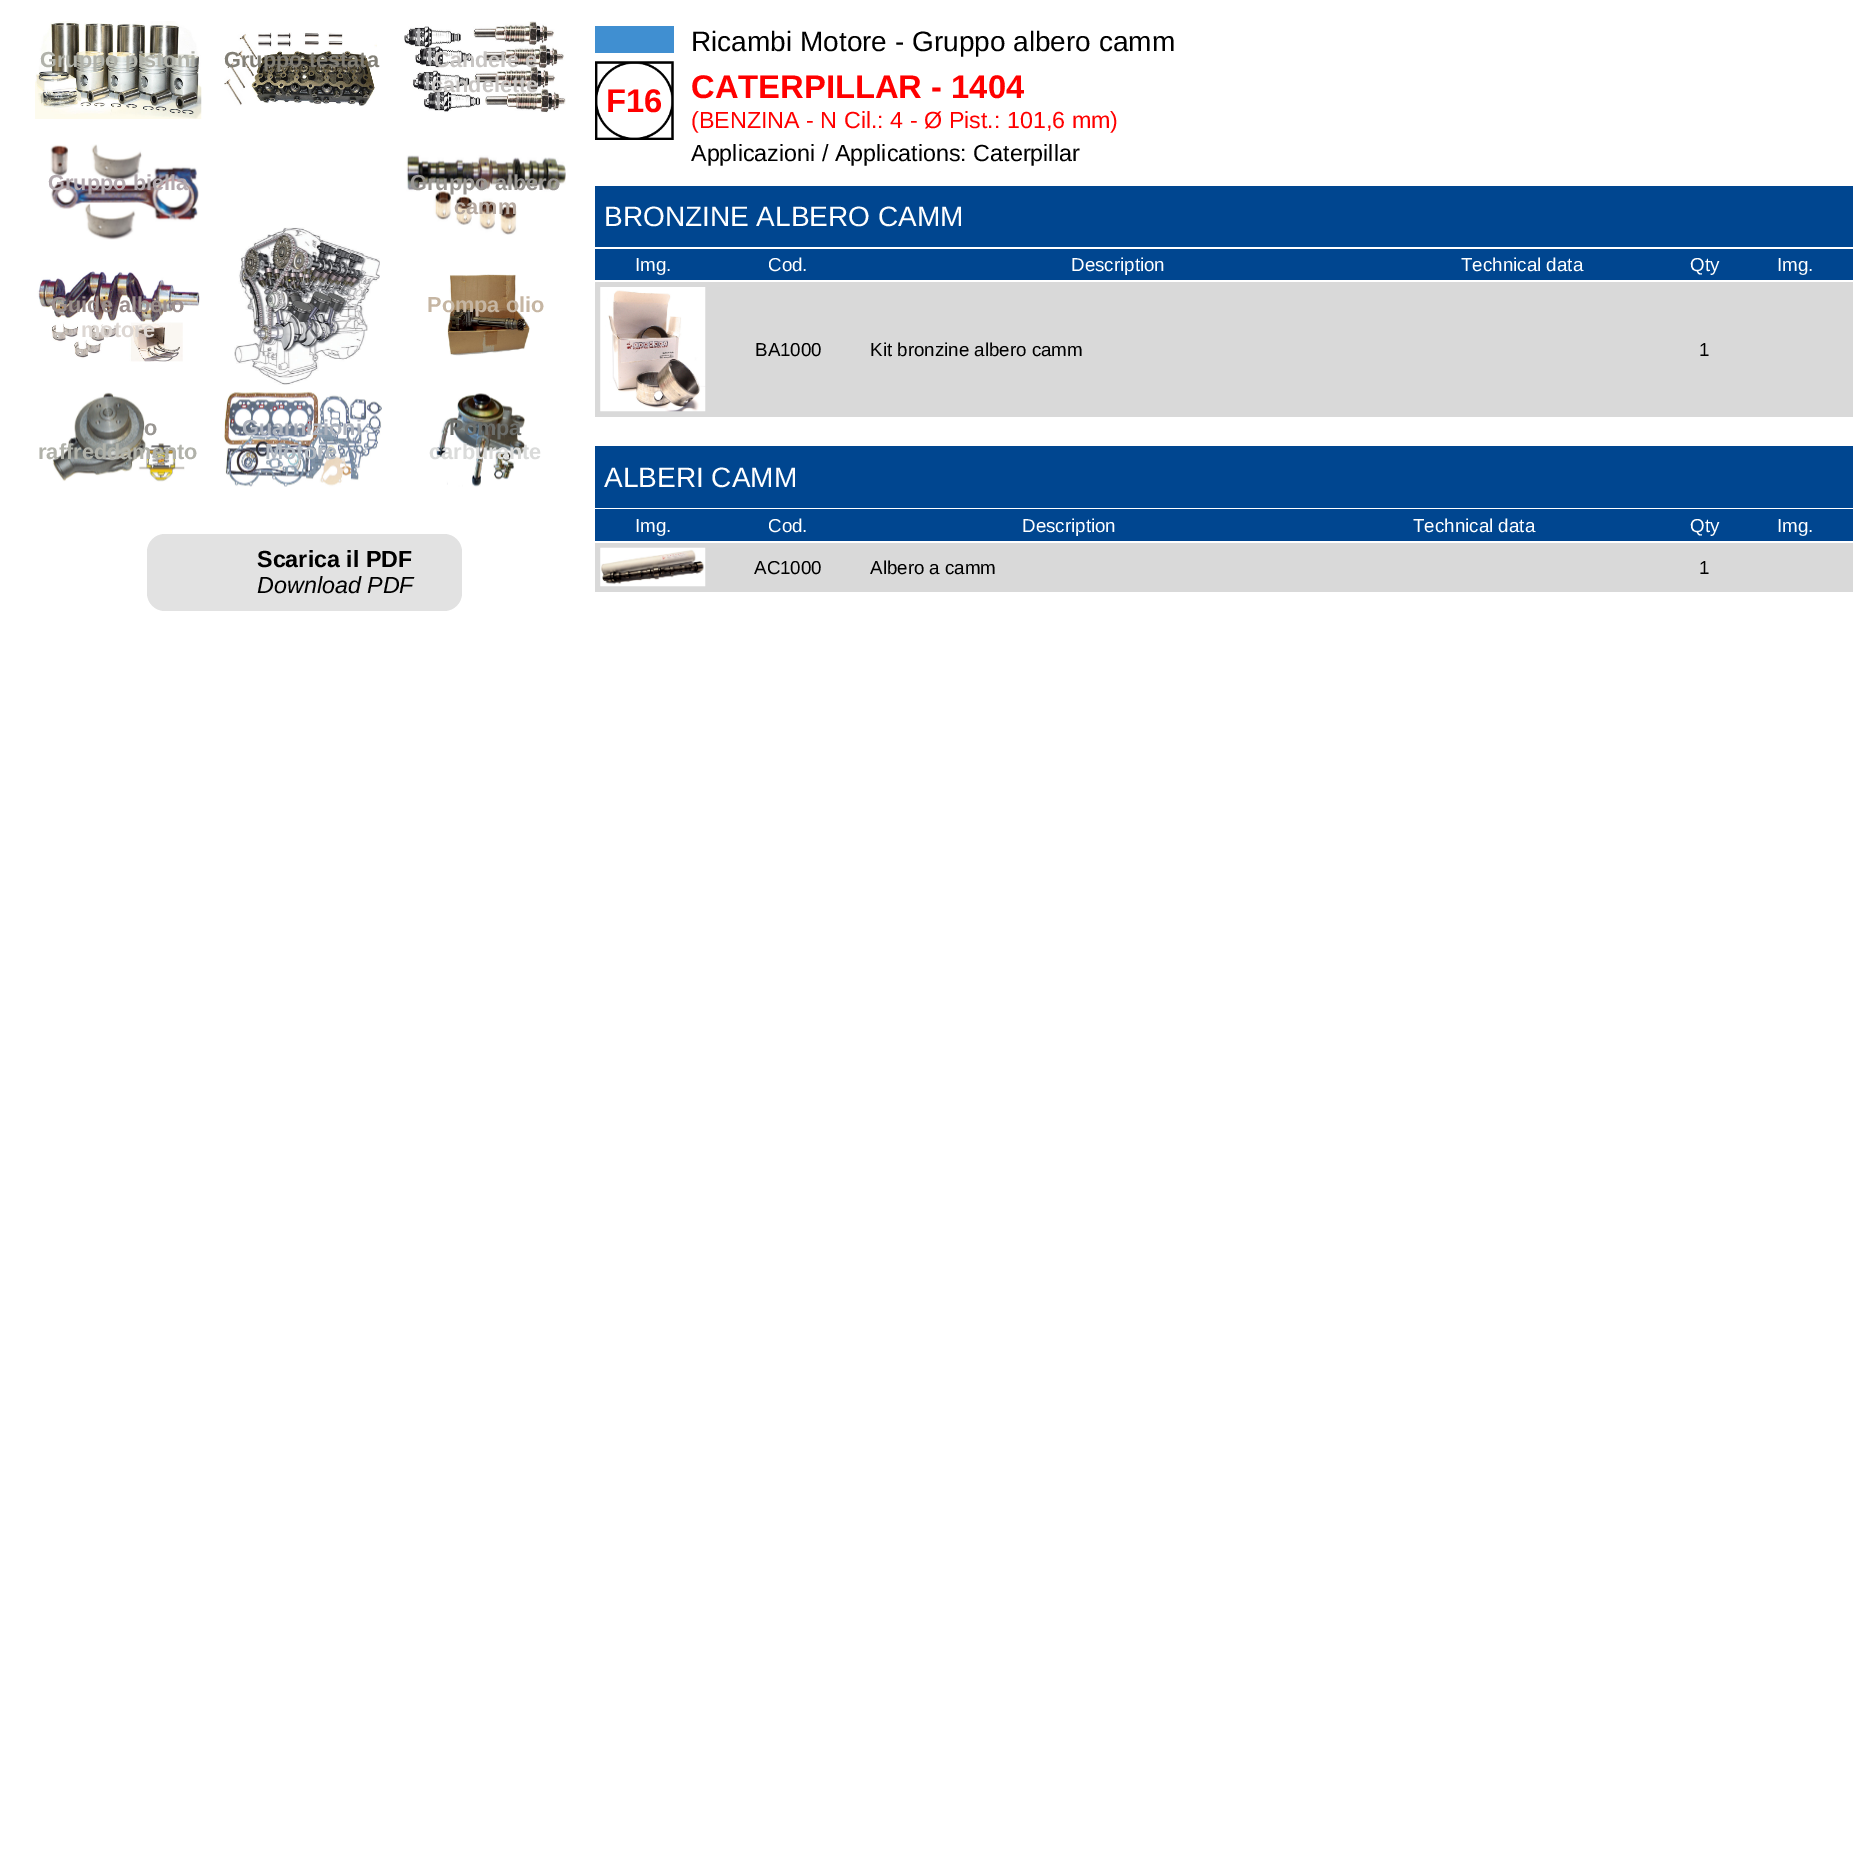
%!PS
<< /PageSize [1854 1864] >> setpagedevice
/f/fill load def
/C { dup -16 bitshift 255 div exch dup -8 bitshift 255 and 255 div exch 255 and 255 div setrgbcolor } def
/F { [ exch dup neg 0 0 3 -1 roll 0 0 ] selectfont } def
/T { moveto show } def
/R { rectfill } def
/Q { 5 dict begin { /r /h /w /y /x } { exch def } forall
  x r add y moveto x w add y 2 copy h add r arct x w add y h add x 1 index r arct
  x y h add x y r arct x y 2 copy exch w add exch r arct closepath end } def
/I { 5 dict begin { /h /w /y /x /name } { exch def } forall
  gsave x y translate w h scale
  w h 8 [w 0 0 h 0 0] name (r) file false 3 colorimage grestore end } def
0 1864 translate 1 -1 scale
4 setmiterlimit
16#FFFFFF C
0 0 1854 1864 R
(1.rgb) 234 227 146 158 I
(2.rgb) 35 21 167 98 I
/LiberationSans-Bold 21.75 F
16#B1B2AA C
(Gruppo pistoni) 40 67 T
(3.rgb) 224 32 153 74 I
16#827F76 C
(Gruppo testata) 224 67 T
(4.rgb) 404 21 162 92 I
16#C8C5C3 C
(Candele e) 434 67 T
(candelette) 431 92 T
(5.rgb) 50 144 149 96 I
16#B2A9AE C
(Gruppo biella) 48 190 T
(6.rgb) 406 155 160 80 I
16#999692 C
(Gruppo albero) 410 190 T
16#B6AAA1 C
(camm) 454 214 T
(7.rgb) 37 271 163 91 I
16#9B8F8D C
(Guide albero) 51 312 T
16#DDD7D3 C
(motore) 81 337 T
(8.rgb) 447 274 83 82 I
16#C6B6A3 C
(Pompa olio) 427 312 T
(9.rgb) 52 392 133 90 I
16#999692 C
(o) 144 435 T
16#B1B2AA C
(raffreddamento) 38 459 T
(10.rgb) 224 391 158 96 I
16#ADB2BC C
(Guarnizioni) 242 435 T
16#B1B8C0 C
(Motore) 265 459 T
(11.rgb) 436 393 89 94 I
16#6C6E6B C
(Pompa) 449 435 T
16#DADBDA C
(carburante) 429 459 T
16#E2E2E2 C
147 534 315 77 18 Q f
/LiberationSans-Bold 23.3 F
16#000000 C
(Scarica il PDF) 257 567 T
/LiberationSans-Italic 23.3 F
(Download PDF) 257 593 T
16#408FD1 C
595 26 79 27 R
/LiberationSans-Regular 28 F
16#000000 C
(Ricambi Motore - Gruppo albero camm) 691 51 T
(12.rgb) 595 61 79 79 I
/LiberationSans-Bold 32.75 F
16#FF0000 C
(F16) 606 112 T
(CATERPILLAR - 1404) 691 98 T
/LiberationSans-Regular 23.3 F
(\(BENZINA - N Cil.: 4 - Ø Pist.: 101,6 mm\)) 691 128 T
16#000000 C
(Applicazioni / Applications: Caterpillar) 691 161 T
16#004690 C
595 186 1258 61 R
/LiberationSans-Regular 28 F
16#FFFFFF C
(BRONZINE ALBERO CAMM) 604 226 T
16#004690 C
595 249 1258 31 R
/LiberationSans-Regular 18.75 F
16#FFFFFF C
(Img.) 635 271 T
(Cod.) 768 271 T
(Description) 1071 271 T
(Technical data) 1461 271 T
(Qty) 1690 271 T
(Img.) 1777 271 T
16#D9D9D9 C
595 282 1258 135 R
(13.rgb) 600 287 106 125 I
16#000000 C
(BA1000) 755 356 T
(Kit bronzine albero camm) 870 356 T
(1) 1699 356 T
16#004690 C
595 446 1258 62 R
/LiberationSans-Regular 28 F
16#FFFFFF C
(ALBERI CAMM) 604 487 T
16#004690 C
595 509 1258 32 R
/LiberationSans-Regular 18.75 F
16#FFFFFF C
(Img.) 635 532 T
(Cod.) 768 532 T
(Description) 1022 532 T
(Technical data) 1413 532 T
(Qty) 1690 532 T
(Img.) 1777 532 T
16#D9D9D9 C
595 543 1258 49 R
(14.rgb) 600 547 106 40 I
16#000000 C
(AC1000) 754 574 T
(Albero a camm) 870 574 T
(1) 1699 574 T
showpage
